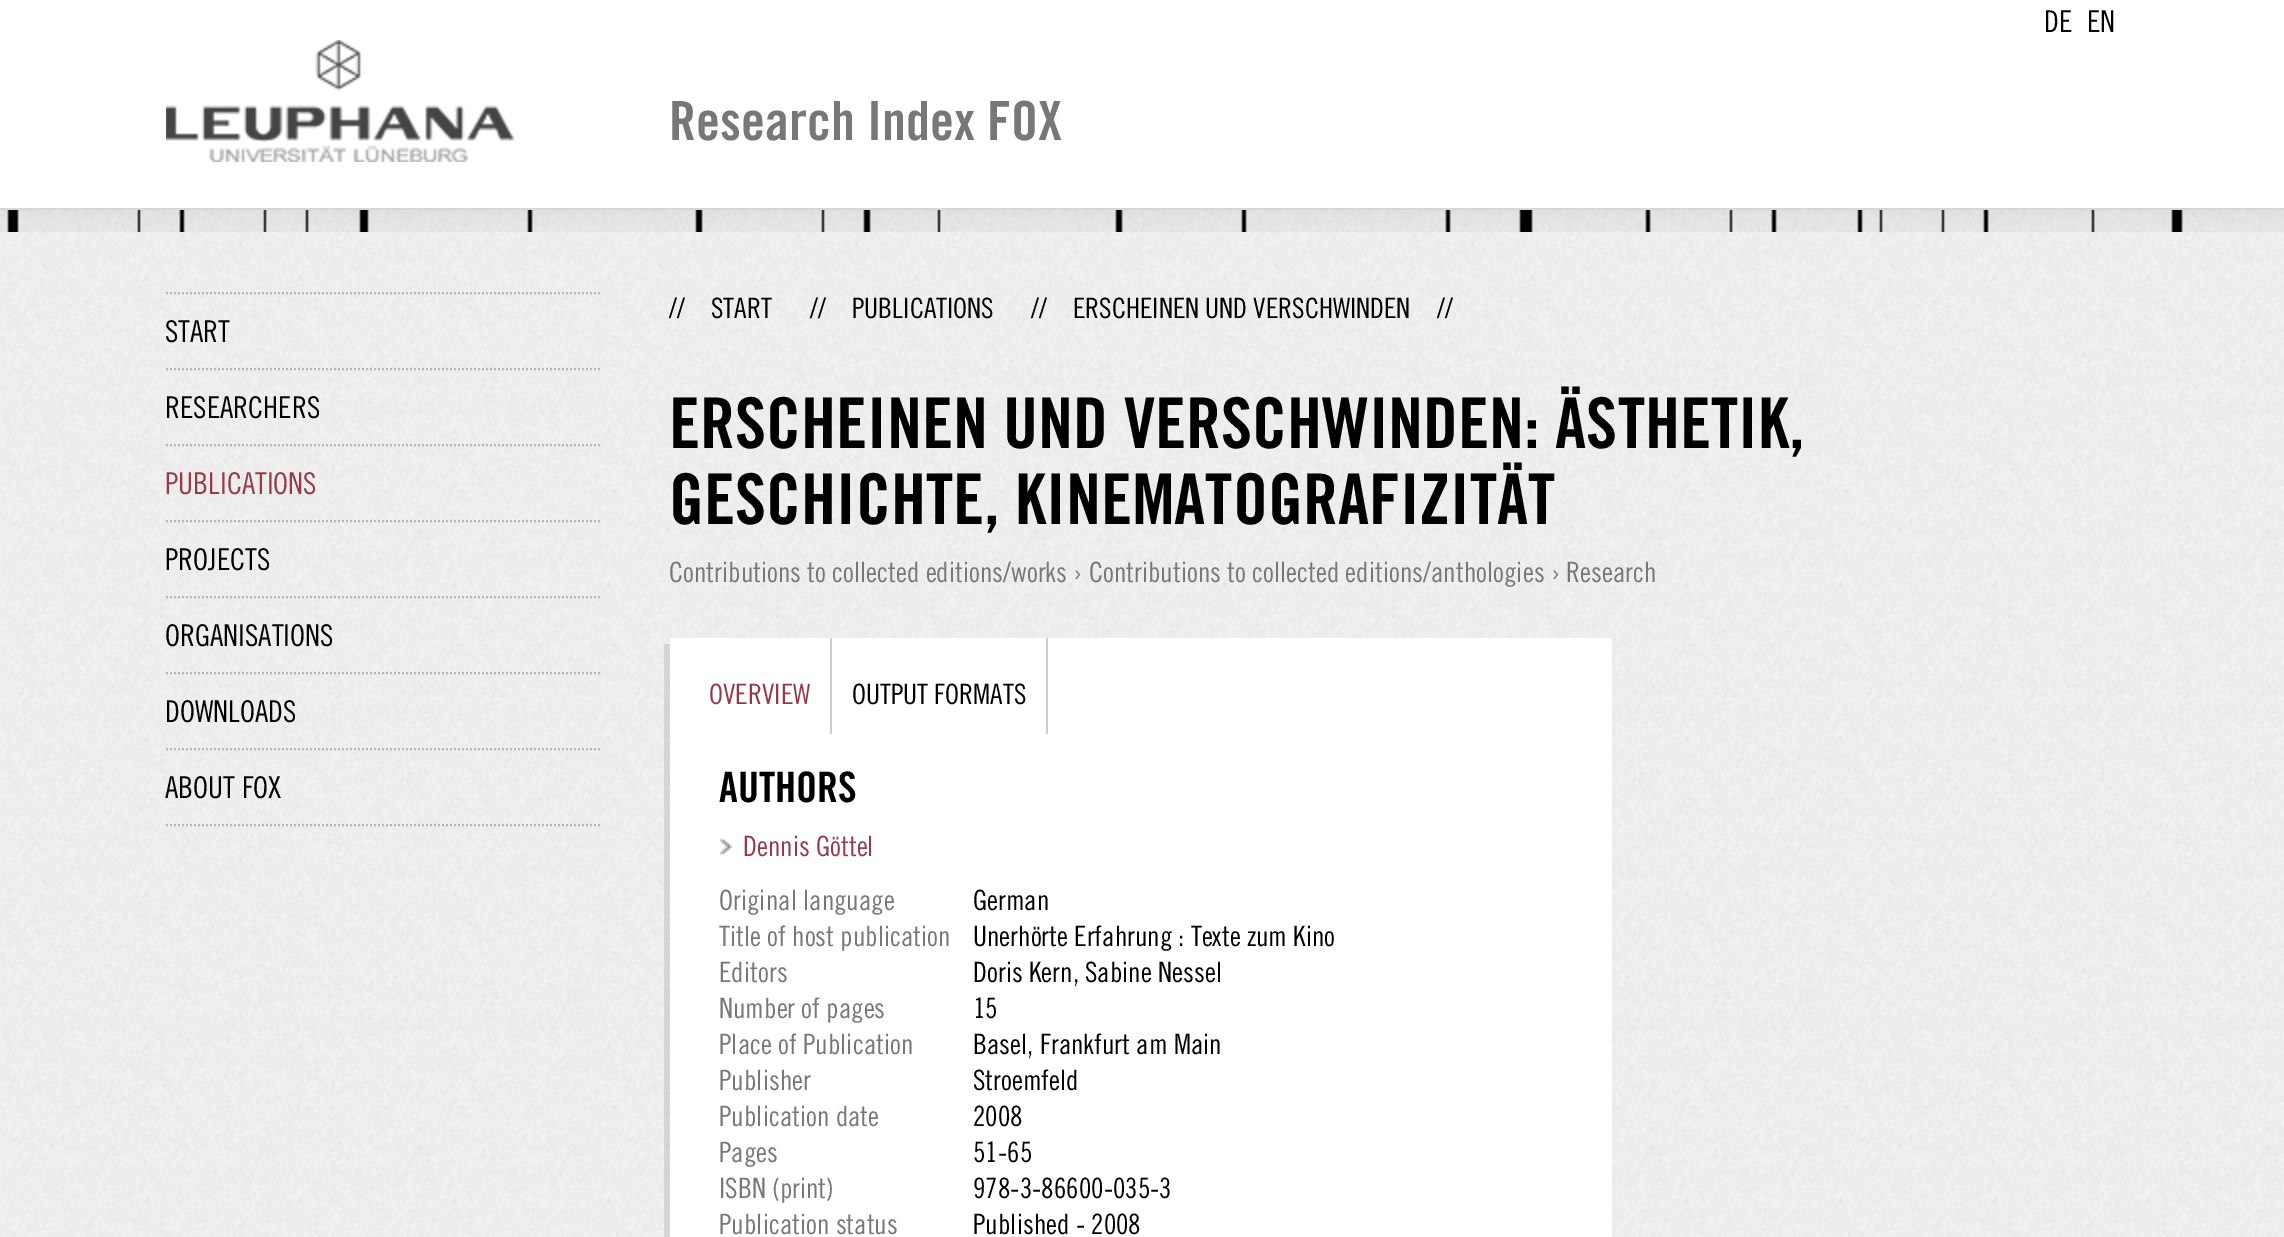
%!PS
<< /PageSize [2284 1237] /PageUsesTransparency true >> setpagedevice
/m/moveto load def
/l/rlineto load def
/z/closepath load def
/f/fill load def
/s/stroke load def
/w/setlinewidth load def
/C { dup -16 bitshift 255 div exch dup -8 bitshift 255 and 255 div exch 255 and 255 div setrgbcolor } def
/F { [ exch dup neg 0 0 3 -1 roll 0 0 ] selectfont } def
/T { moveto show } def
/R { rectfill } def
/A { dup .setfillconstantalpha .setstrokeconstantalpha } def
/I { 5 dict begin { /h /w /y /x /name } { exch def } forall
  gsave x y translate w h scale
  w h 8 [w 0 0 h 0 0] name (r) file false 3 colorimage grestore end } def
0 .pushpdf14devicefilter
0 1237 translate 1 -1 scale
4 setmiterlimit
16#EEEEEE C
0 0 2284 1237 R
(1.rgb) 1 232 2283 1005 I
16#FFFFFF C
0 0 2284 208 R
16#D6D6D6 C
0 208 2284 2 R
/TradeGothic-Regular 30 F
16#000000 C
(DE) 2044 32 T
(EN) 2087 32 T
(2.rgb) 166 40 348 122 I
/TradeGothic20-Bold 54 F
16#777777 C
(Research Index FOX) 669 140 T
(3.rgb) 0 210 2284 22 I
16#B5B5B5 C
2 w
[2 2] 0 setdash
166 825 m 434 0 l s
166 293 m 434 0 l s
/TradeGothic-Regular 30 F
16#000000 C
(START) 165 342 T
16#B5B5B5 C
166 369 m 434 0 l s
16#000000 C
(RESEARCHERS) 165 418 T
16#B5B5B5 C
166 445 m 434 0 l s
16#973948 C
(PUBLICATIONS) 165 494 T
16#B5B5B5 C
166 521 m 434 0 l s
16#000000 C
(PROJECTS) 165 570 T
16#B5B5B5 C
166 597 m 434 0 l s
16#000000 C
(ORGANISATIONS) 165 646 T
16#B5B5B5 C
166 673 m 434 0 l s
16#000000 C
(DOWNLOADS) 165 722 T
16#B5B5B5 C
166 749 m 434 0 l s
16#000000 C
(ABOUT FOX) 165 798 T
/TradeGothic-Regular 28 F
(//) 669 318 T
(START) 711 318 T
(//) 810 318 T
(PUBLICATIONS) 852 318 T
(//) 1031 318 T
(ERSCHEINEN UND VERSCHWINDEN) 1073 318 T
(//) 1437 318 T
/TradeGothic20-Bold 70 F
(ERSCHEINEN UND VERSCHWINDEN: ÄSTHETIK,) 669 448 T
(GESCHICHTE, KINEMATOGRAFIZITÄT) 669 524 T
/TradeGothic-Regular 28 F
16#777777 C
(Contributions to collected editions/works › Contributions to collected editions/anthologies › Research) 669 582 T
0.1 A
16#000000 C
664 644 m 0 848 l 942 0 l 0 -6 l -936 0 l 0 -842 l z f
1 A
16#FFFFFF C
670 638 942 599 R
16#CDCDCD C
830 638 2 96 R
16#973948 C
(OVERVIEW) 709 704 T
16#CDCDCD C
1046 638 2 96 R
16#000000 C
(OUTPUT FORMATS) 852 704 T
/TradeGothic20-Bold 42 F
(AUTHORS) 719 802 T
(4.rgb) 720 838 12 18 I
/TradeGothic-Regular 28 F
16#973948 C
(Dennis Göttel) 743 856 T
16#777777 C
(Original language) 719 910 T
16#000000 C
(German) 973 910 T
16#777777 C
(Title of host publication) 719 946 T
16#000000 C
(Unerhörte Erfahrung : Texte zum Kino) 973 946 T
16#777777 C
(Editors) 719 982 T
16#000000 C
(Doris Kern, Sabine Nessel) 973 982 T
16#777777 C
(Number of pages) 719 1018 T
16#000000 C
(15) 973 1018 T
16#777777 C
(Place of Publication) 719 1054 T
16#000000 C
(Basel, Frankfurt am Main) 973 1054 T
16#777777 C
(Publisher) 719 1090 T
16#000000 C
(Stroemfeld) 973 1090 T
16#777777 C
(Publication date) 719 1126 T
16#000000 C
(2008) 973 1126 T
16#777777 C
(Pages) 719 1162 T
16#000000 C
(51-65) 973 1162 T
16#777777 C
(ISBN \(print\)) 719 1198 T
16#000000 C
(978-3-86600-035-3) 973 1198 T
16#777777 C
(Publication status) 719 1234 T
16#000000 C
(Published - 2008) 973 1234 T
.poppdf14devicefilter showpage
